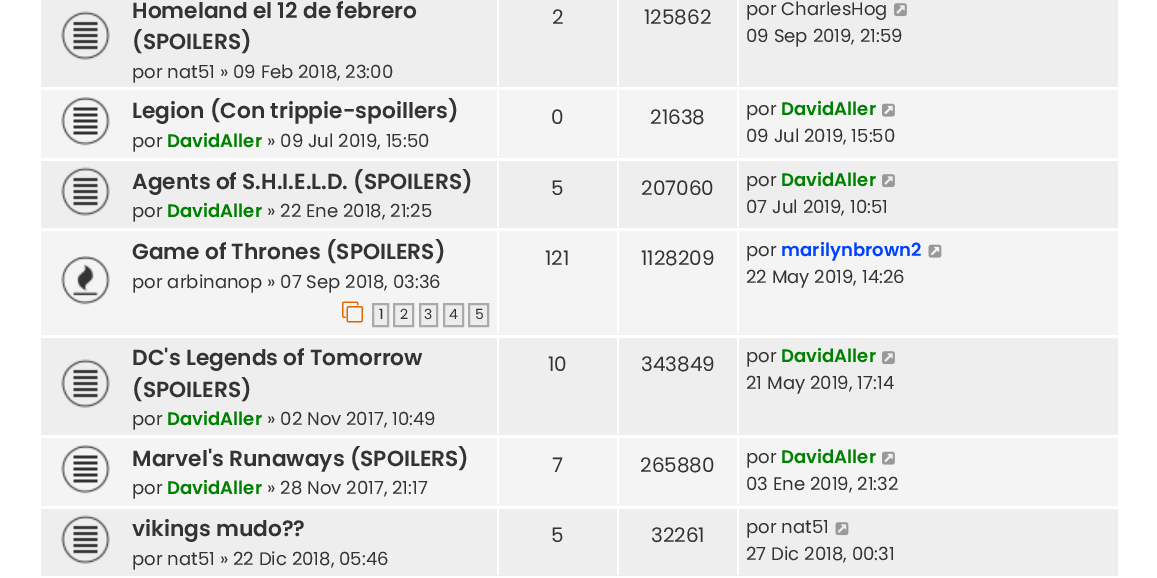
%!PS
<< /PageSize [1157 578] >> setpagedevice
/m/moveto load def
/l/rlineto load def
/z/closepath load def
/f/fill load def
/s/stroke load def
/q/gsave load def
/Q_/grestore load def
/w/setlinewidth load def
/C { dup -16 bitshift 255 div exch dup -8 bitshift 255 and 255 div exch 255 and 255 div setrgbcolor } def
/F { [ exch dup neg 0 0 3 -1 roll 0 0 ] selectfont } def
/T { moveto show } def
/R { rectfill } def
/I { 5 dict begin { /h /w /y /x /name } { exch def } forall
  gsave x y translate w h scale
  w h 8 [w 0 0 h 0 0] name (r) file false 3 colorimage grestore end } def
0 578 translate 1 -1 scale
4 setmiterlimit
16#FFFFFF C
0 0 1157 578 R
16#EEEEEE C
41 0 1077 87 R
(1.rgb) 61 11 49 49 I
/Poppins-SemiBold 21.75 F
16#333333 C
(Homeland el 12 de febrero) 132 18 T
(\(SPOILERS\)) 132 49 T
/Poppins-Regular 18.1 F
(por nat51 » 09 Feb 2018, 23:00) 132 78 T
16#FFFFFF C
497 0 2 86 R
/Poppins-Regular 20 F
16#333333 C
(2) 552 24 T
16#FFFFFF C
617 0 2 86 R
16#333333 C
(125862) 644 24 T
16#FFFFFF C
737 0 2 86 R
/Poppins-Regular 18.1 F
16#333333 C
(por CharlesHog) 746 15 T
(2.rgb) 894 3 13 14 I
(09 Sep 2019, 21:59) 746 42 T
16#F4F4F4 C
41 90 1077 68 R
(3.rgb) 61 97 49 49 I
/Poppins-SemiBold 21.75 F
16#333333 C
(Legion \(Con trippie-spoillers\)) 132 118 T
/Poppins-Regular 18.1 F
(por) 132 147 T
/Poppins-SemiBold 18.1 F
16#008000 C
(DavidAller) 167 147 T
/Poppins-Regular 18.1 F
16#333333 C
(» 09 Jul 2019, 15:50) 267 147 T
16#FFFFFF C
497 90 2 66 R
/Poppins-Regular 20 F
16#333333 C
(0) 551 124 T
16#FFFFFF C
617 90 2 66 R
16#333333 C
(21638) 650 124 T
16#FFFFFF C
737 90 2 66 R
/Poppins-Regular 18.1 F
16#333333 C
(por) 746 115 T
/Poppins-SemiBold 18.1 F
16#008000 C
(DavidAller) 781 115 T
(4.rgb) 882 103 13 14 I
/Poppins-Regular 18.1 F
16#333333 C
(09 Jul 2019, 15:50) 746 142 T
16#EEEEEE C
41 161 1077 67 R
(1.rgb) 61 167 49 49 I
/Poppins-SemiBold 21.75 F
16#333333 C
(Agents of S.H.I.E.L.D. \(SPOILERS\)) 132 189 T
/Poppins-Regular 18.1 F
(por) 132 217 T
/Poppins-SemiBold 18.1 F
16#008000 C
(DavidAller) 167 217 T
/Poppins-Regular 18.1 F
16#333333 C
(» 22 Ene 2018, 21:25) 267 217 T
16#FFFFFF C
497 161 2 66 R
/Poppins-Regular 20 F
16#333333 C
(5) 551 195 T
16#FFFFFF C
617 161 2 66 R
16#333333 C
(207060) 641 195 T
16#FFFFFF C
737 161 2 66 R
/Poppins-Regular 18.1 F
16#333333 C
(por) 746 186 T
/Poppins-SemiBold 18.1 F
16#008000 C
(DavidAller) 781 186 T
(2.rgb) 882 174 13 14 I
/Poppins-Regular 18.1 F
16#333333 C
(07 Jul 2019, 10:51) 746 213 T
16#F4F4F4 C
41 231 1077 104 R
(5.rgb) 61 256 49 49 I
/Poppins-SemiBold 21.75 F
16#333333 C
(Game of Thrones \(SPOILERS\)) 132 259 T
/Poppins-Regular 18.1 F
(por arbinanop » 07 Sep 2018, 03:36) 132 288 T
(6.rgb) 342 301 21 22 I
16#ECEDEE C
373 304 m 15 0 l 0 22 l -15 0 l z q f Q_
16#AAAAAA C
2 w
s
/Poppins-Regular 14 F
16#333333 C
(1) 379 319 T
16#ECEDEE C
394 304 m 19 0 l 0 22 l -19 0 l z q f Q_
16#AAAAAA C
s
16#333333 C
(2) 400 319 T
16#ECEDEE C
420 304 m 17 0 l 0 22 l -17 0 l z q f Q_
16#AAAAAA C
s
16#333333 C
(3) 424 319 T
16#ECEDEE C
444 304 m 19 0 l 0 22 l -19 0 l z q f Q_
16#AAAAAA C
s
16#333333 C
(4) 449 319 T
16#ECEDEE C
469 304 m 19 0 l 0 22 l -19 0 l z q f Q_
16#AAAAAA C
s
16#333333 C
(5) 475 319 T
16#FFFFFF C
497 231 2 102 R
/Poppins-Regular 20 F
16#333333 C
(121) 545 265 T
16#FFFFFF C
617 231 2 102 R
16#333333 C
(1128209) 641 265 T
16#FFFFFF C
737 231 2 102 R
/Poppins-Regular 18.1 F
16#333333 C
(por) 746 256 T
/Poppins-SemiBold 18.1 F
16#0040FF C
(marilynbrown2) 781 256 T
(7.rgb) 928 244 14 14 I
/Poppins-Regular 18.1 F
16#333333 C
(22 May 2019, 14:26) 746 283 T
16#EEEEEE C
41 338 1077 97 R
(1.rgb) 61 359 49 49 I
/Poppins-SemiBold 21.75 F
16#333333 C
(DC's Legends of Tomorrow) 132 365 T
(\(SPOILERS\)) 132 397 T
/Poppins-Regular 18.1 F
(por) 132 425 T
/Poppins-SemiBold 18.1 F
16#008000 C
(DavidAller) 167 425 T
/Poppins-Regular 18.1 F
16#333333 C
(» 02 Nov 2017, 10:49) 267 425 T
16#FFFFFF C
497 338 2 96 R
/Poppins-Regular 20 F
16#333333 C
(10) 548 371 T
16#FFFFFF C
617 338 2 96 R
16#333333 C
(343849) 641 371 T
16#FFFFFF C
737 338 2 96 R
/Poppins-Regular 18.1 F
16#333333 C
(por) 746 362 T
/Poppins-SemiBold 18.1 F
16#008000 C
(DavidAller) 781 362 T
(2.rgb) 882 351 13 14 I
/Poppins-Regular 18.1 F
16#333333 C
(21 May 2019, 17:14) 746 389 T
16#F4F4F4 C
41 438 1077 68 R
(3.rgb) 61 445 49 49 I
/Poppins-SemiBold 21.75 F
16#333333 C
(Marvel's Runaways \(SPOILERS\)) 132 466 T
/Poppins-Regular 18.1 F
(por) 132 494 T
/Poppins-SemiBold 18.1 F
16#008000 C
(DavidAller) 167 494 T
/Poppins-Regular 18.1 F
16#333333 C
(» 28 Nov 2017, 21:17) 267 494 T
16#FFFFFF C
497 438 2 66 R
/Poppins-Regular 20 F
16#333333 C
(7) 552 472 T
16#FFFFFF C
617 438 2 66 R
16#333333 C
(265880) 640 472 T
16#FFFFFF C
737 438 2 66 R
/Poppins-Regular 18.1 F
16#333333 C
(por) 746 463 T
/Poppins-SemiBold 18.1 F
16#008000 C
(DavidAller) 781 463 T
(4.rgb) 882 451 13 14 I
/Poppins-Regular 18.1 F
16#333333 C
(03 Ene 2019, 21:32) 746 490 T
16#EEEEEE C
41 509 1077 67 R
(1.rgb) 61 515 49 49 I
/Poppins-SemiBold 21.75 F
16#333333 C
(vikings mudo??) 132 536 T
/Poppins-Regular 18.1 F
(por nat51 » 22 Dic 2018, 05:46) 132 565 T
16#FFFFFF C
497 509 2 66 R
/Poppins-Regular 20 F
16#333333 C
(5) 551 542 T
16#FFFFFF C
617 509 2 66 R
16#333333 C
(32261) 651 542 T
16#FFFFFF C
737 509 2 66 R
/Poppins-Regular 18.1 F
16#333333 C
(por nat51) 746 533 T
(8.rgb) 835 522 14 14 I
(27 Dic 2018, 00:31) 746 560 T
showpage
